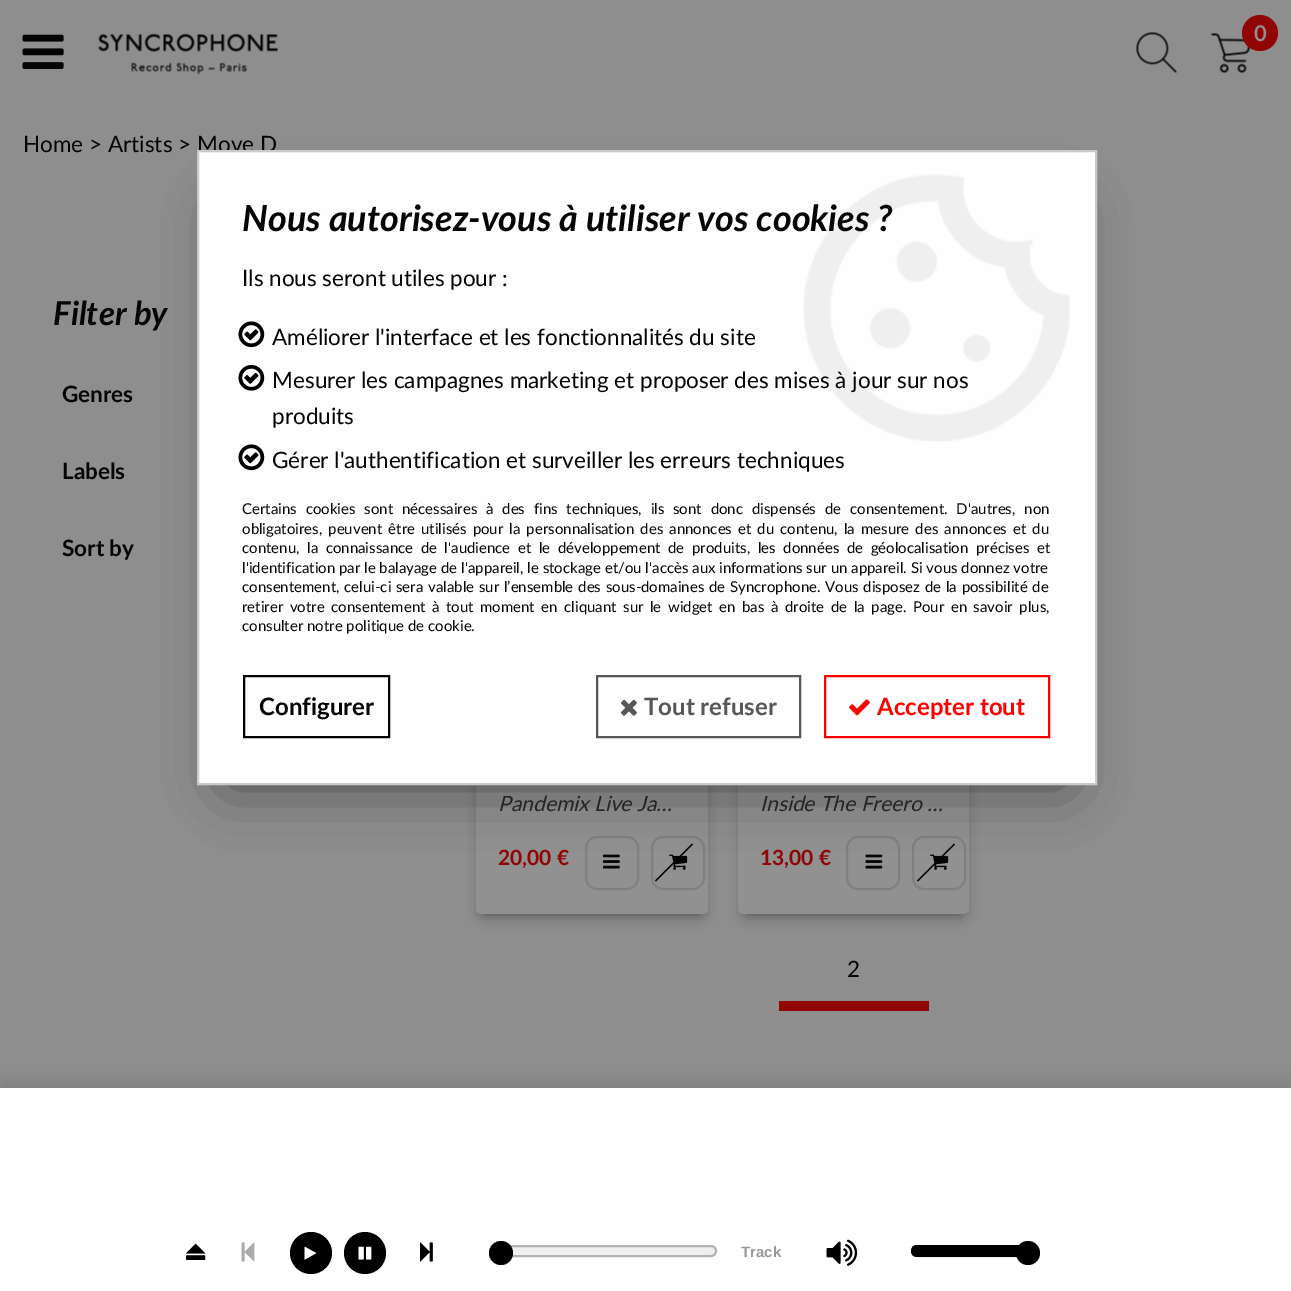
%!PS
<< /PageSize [1291 1291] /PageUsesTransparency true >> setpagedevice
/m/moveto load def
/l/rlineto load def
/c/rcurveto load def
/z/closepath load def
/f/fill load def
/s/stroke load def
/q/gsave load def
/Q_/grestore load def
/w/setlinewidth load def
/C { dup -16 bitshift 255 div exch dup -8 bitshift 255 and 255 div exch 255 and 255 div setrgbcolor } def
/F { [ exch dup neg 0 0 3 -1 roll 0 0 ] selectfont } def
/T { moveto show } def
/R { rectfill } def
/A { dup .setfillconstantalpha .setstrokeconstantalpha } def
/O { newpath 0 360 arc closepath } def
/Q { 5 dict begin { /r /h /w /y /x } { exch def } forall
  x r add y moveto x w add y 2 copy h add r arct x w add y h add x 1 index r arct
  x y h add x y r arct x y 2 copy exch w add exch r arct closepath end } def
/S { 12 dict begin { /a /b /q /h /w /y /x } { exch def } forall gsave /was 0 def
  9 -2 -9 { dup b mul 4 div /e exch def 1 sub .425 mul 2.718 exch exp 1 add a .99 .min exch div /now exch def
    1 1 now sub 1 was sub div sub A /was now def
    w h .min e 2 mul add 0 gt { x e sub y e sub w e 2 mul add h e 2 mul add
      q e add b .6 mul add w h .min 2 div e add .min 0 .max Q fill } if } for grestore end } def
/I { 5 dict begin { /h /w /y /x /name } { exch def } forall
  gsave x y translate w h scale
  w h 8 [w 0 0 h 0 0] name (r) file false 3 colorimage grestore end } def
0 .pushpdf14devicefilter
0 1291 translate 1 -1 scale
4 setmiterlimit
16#8E8E8E C
0 0 1291 1291 R
(1.rgb) 22 34 42 35 I
(2.rgb) 98 33 180 42 I
(3.rgb) 1136 32 41 41 I
(4.rgb) 1211 33 40 40 I
16#910505 C
1260 33 18 O f
/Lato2-Bold 21 F
16#919191 C
(0) 1254 41 T
/Lato-Regular 22.5 F
16#050505 C
(Home > Artists > Move D) 23 152 T
/Lato-BoldItalic 33 F
(Filter by) 53 325 T
/Lato-Bold 22.5 F
(Genres) 62 402 T
(Labels) 62 479 T
(Sort by) 62 556 T
483 480 218 434 0 7.5 .5 S
16#919191 C
476 465 232 449 6 Q f
/Lato-Italic 21 F
16#2A2A2A C
(Pandemix Live Ja…) 498 811 T
/Lato-Bold 21 F
16#910505 C
(20,00 €) 498 865 T
16#808080 C
2 w
586 837 52 52 11 Q s
(5.rgb) 603 854 17 15 I
652 837 52 52 11 Q s
(6.rgb) 669 854 19 16 I
16#050505 C
655 880.5 m 37 -37 l 1 1 l -37 37 l z f
746 480 216 434 0 7.5 .5 S
16#919191 C
738 465 231 449 6 Q f
/Lato-Italic 21 F
16#2A2A2A C
(Inside The Freero …) 760 811 T
/Lato-Bold 21 F
16#910505 C
(13,00 €) 760 865 T
16#808080 C
847 837 52 52 11 Q s
(7.rgb) 865 854 18 15 I
913 837 52 52 11 Q s
(6.rgb) 930 854 19 16 I
16#050505 C
917 880.5 m 37 -37 l 1 1 l -37 37 l z f
/Lato-Regular 22.5 F
(2) 847 977 T
16#910505 C
779 1001 150 10 R
16#000000 C
0 1082 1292 204 0 7.5 .1 S
16#FFFFFF C
0 1088 1291 203 R
(8.rgb) 186 1243 20 17 I
(9.rgb) 241 1242 14 20 I
16#000000 C
311 1253 21 O f
(10.rgb) 304 1246 13 14 I
365 1253 21 O f
(11.rgb) 358 1246 14 14 I
(12.rgb) 420 1242 13 20 I
16#EFEFEF C
492 1246 224 10 5 Q q f Q_
16#B2B2B2 C
s
16#000000 C
501 1253 12 O f
/LiberationSans-Bold 15 F
16#999999 C
(Track) 741 1257 T
(13.rgb) 826 1239 32 27 I
16#B2B2B2 C
912 1246 125 10 5 Q s
16#000000 C
917 1245 m 111 0 l 0 12 l -111 0 l -3.5 0 -6 -2.5 -6 -6 c 0 -3.5 2.5 -6 6 -6 c z f
1028 1253 12 O f
227 210 840 575 0 30 .5 S
16#FEFEFE C
199 152 896 631 R
(14.rgb) 803 174 267 268 I
16#CACACA C
198 151 898 633 rectstroke
/Lato-BoldItalic 36 F
16#050505 C
(Nous autorisez-vous à utiliser vos cookies ?) 242 231 T
/Lato-Regular 22.5 F
(Ils nous seront utiles pour :) 242 286 T
(15.rgb) 238 321 27 27 I
(Améliorer l'interface et les fonctionnalités du site) 272 345 T
(16.rgb) 238 364 27 27 I
(Mesurer les campagnes marketing et proposer des mises à jour sur nos) 272 388 T
(produits) 272 424 T
(15.rgb) 238 444 27 27 I
(Gérer l'authentification et surveiller les erreurs techniques) 272 468 T
/Lato-Regular 15 F
242 514 m 5 0 32 (Certains cookies sont nécessaires à des fins techniques, ils sont donc dispensés de consentement. D'autres, non) widthshow
242 534 m 2.25 0 32 (obligatoires, peuvent être utilisés pour la personnalisation des annonces et du contenu, la mesure des annonces et du) widthshow
242 553 m 3.75 0 32 (contenu, la connaissance de l'audience et le développement de produits, les données de géolocalisation précises et) widthshow
(l'identification par le balayage de l'appareil, le stockage et/ou l'accès aux informations sur un appareil. Si vous donnez votre) 242 573 T
242 592 m .9 0 32 (consentement, celui-ci sera valable sur l’ensemble des sous-domaines de Syncrophone. Vous disposez de la possibilité de) widthshow
242 612 m 2.7 0 32 (retirer votre consentement à tout moment en cliquant sur le widget en bas à droite de la page. Pour en savoir plus,) widthshow
(consulter notre politique de cookie.) 242 631 T
16#000000 C
244 676 145 61 rectstroke
/Lato-Bold 24 F
16#050505 C
(Configurer) 259 715 T
16#575757 C
597 676 203 61 rectstroke
(17.rgb) 621 699 16 17 I
(Tout refuser) 644 715 T
16#FF0000 C
825 676 224 61 rectstroke
(18.rgb) 849 699 21 17 I
(Accepter tout) 877 715 T
.poppdf14devicefilter showpage
